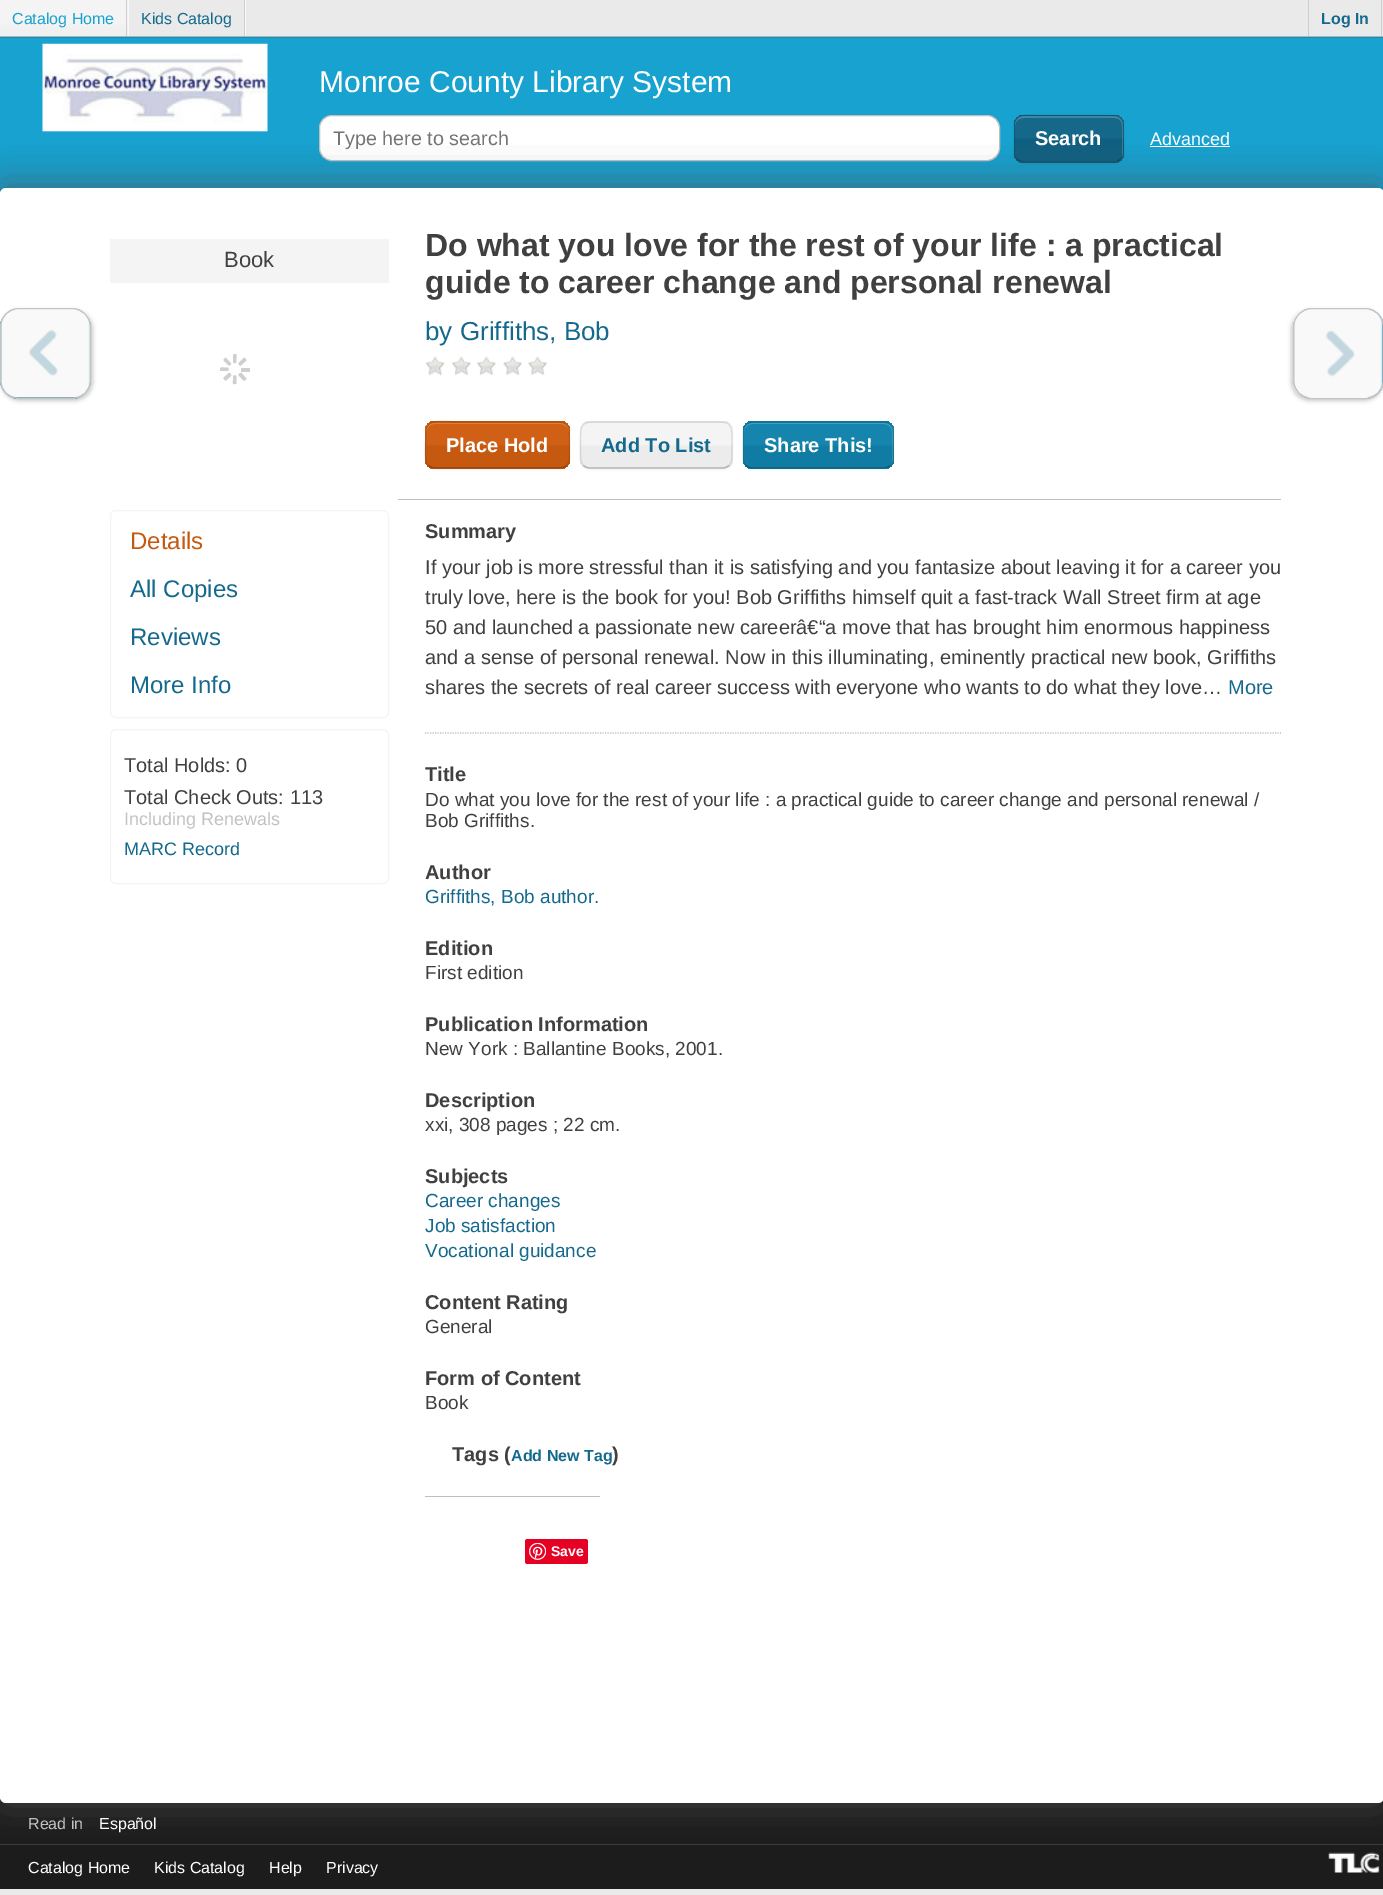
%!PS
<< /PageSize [1383 1895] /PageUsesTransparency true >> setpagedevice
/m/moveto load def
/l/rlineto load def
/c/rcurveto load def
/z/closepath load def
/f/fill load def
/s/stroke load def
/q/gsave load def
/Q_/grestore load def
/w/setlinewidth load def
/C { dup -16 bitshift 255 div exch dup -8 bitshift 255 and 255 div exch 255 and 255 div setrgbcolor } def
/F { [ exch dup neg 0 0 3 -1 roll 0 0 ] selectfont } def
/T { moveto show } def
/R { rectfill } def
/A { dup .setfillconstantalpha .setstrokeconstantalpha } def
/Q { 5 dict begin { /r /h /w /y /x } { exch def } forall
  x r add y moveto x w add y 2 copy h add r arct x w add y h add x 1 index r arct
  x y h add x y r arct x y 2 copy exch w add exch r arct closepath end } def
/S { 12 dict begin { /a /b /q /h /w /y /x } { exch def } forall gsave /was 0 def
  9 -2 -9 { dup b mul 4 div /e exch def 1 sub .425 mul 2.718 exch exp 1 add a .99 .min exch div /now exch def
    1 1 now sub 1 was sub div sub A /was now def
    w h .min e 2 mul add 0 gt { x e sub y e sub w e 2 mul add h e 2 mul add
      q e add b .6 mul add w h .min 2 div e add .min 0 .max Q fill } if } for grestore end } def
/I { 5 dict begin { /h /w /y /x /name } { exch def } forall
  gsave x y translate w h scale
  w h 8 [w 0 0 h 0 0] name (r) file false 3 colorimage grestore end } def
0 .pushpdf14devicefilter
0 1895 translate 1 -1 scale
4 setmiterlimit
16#EAEAEA C
0 0 1383 1895 R
16#F8F8F8 C
128 0 1 36 R
q 0 0 m 128 0 l 0 36 l -128 0 l z clip newpath
<< /ShadingType 2 /ColorSpace /DeviceRGB /Coords [63 0 63 36] /Extend [true true] /Function << /FunctionType 3 /Domain [0 1] /Functions [<< /FunctionType 2 /Domain [0 1] /C0 [.957 .957 .957] /C1 [.957 .957 .957] /N 1 >> << /FunctionType 2 /Domain [0 1] /C0 [.957 .957 .957] /C1 [.941 .941 .941] /N 1 >> << /FunctionType 2 /Domain [0 1] /C0 [.941 .941 .941] /C1 [.941 .941 .941] /N 1 >>] /Bounds [.6 .8] /Encode [0 1 0 1 0 1] >> >> shfill Q_
16#CECECE C
126 0 1 36 R
/LiberationSans-Regular 16 F
16#17A2D0 C
(Catalog Home) 12 24 T
16#F8F8F8 C
245 0 1 36 R
16#CECECE C
244 0 1 36 R
16#15698C C
(Kids Catalog) 141 24 T
16#CECECE C
1308 0 1 36 R
1381 0 1 36 R
/LiberationSans-Bold 16 F
16#15698C C
(Log In) 1321 24 T
16#158FB8 C
0 37 1383 1 R
q 0 38 m 1383 0 l 0 156 l -1383 0 l z clip newpath
<< /ShadingType 2 /ColorSpace /DeviceRGB /Coords [692 37 692 250] /Extend [true true] /Function << /FunctionType 3 /Domain [0 1] /Functions [<< /FunctionType 2 /Domain [0 1] /C0 [.09 .635 .816] /C1 [.09 .635 .816] /N 1 >> << /FunctionType 2 /Domain [0 1] /C0 [.09 .635 .816] /C1 [.082 .561 .722] /N 1 >>] /Bounds [.5] /Encode [0 1 0 1] >> >> shfill Q_
16#B4B4B4 C
0 36 1383 1 R
(1.rgb) 42 43 226 89 I
/LiberationSans-Regular 30 F
16#FFFFFF C
(Monroe County Library System) 319 92 T
319.5 115.5 680 45 12.5 Q q f Q_
16#BFBFBF C
s
/LiberationSans-Regular 19.75 F
16#757575 C
(Type here to search) 333 145 T
16#000000 C
1014 116 110 48 10 1 .05 S
q
1014 115 110 48 10 Q clip newpath
q 1014 115 m 110 0 l 0 1 l -110 0 l z clip newpath
<< /ShadingType 2 /ColorSpace /DeviceRGB /Coords [1069 71 1069 116] /Extend [true true] /Function << /FunctionType 3 /Domain [0 1] /Functions [<< /FunctionType 2 /Domain [0 1] /C0 [.082 .408 .541] /C1 [.082 .408 .541] /N 1 >> << /FunctionType 2 /Domain [0 1] /C0 [.082 .408 .541] /C1 [.063 .373 .502] /N 1 >> << /FunctionType 2 /Domain [0 1] /C0 [.063 .373 .502] /C1 [.063 .373 .502] /N 1 >>] /Bounds [.48 .52] /Encode [0 1 0 1 0 1] >> >> shfill Q_
q 1014 116 m 110 0 l 0 45 l -110 0 l z clip newpath
<< /ShadingType 2 /ColorSpace /DeviceRGB /Coords [1069 116 1069 161] /Extend [true true] /Function << /FunctionType 3 /Domain [0 1] /Functions [<< /FunctionType 2 /Domain [0 1] /C0 [.082 .408 .541] /C1 [.082 .408 .541] /N 1 >> << /FunctionType 2 /Domain [0 1] /C0 [.082 .408 .541] /C1 [.063 .373 .502] /N 1 >> << /FunctionType 2 /Domain [0 1] /C0 [.063 .373 .502] /C1 [.063 .373 .502] /N 1 >>] /Bounds [.48 .52] /Encode [0 1 0 1 0 1] >> >> shfill Q_
q 1014 161 m 110 0 l 0 2 l -110 0 l z clip newpath
<< /ShadingType 2 /ColorSpace /DeviceRGB /Coords [1069 161 1069 206] /Extend [true true] /Function << /FunctionType 3 /Domain [0 1] /Functions [<< /FunctionType 2 /Domain [0 1] /C0 [.082 .408 .541] /C1 [.082 .408 .541] /N 1 >> << /FunctionType 2 /Domain [0 1] /C0 [.082 .408 .541] /C1 [.063 .373 .502] /N 1 >> << /FunctionType 2 /Domain [0 1] /C0 [.063 .373 .502] /C1 [.063 .373 .502] /N 1 >>] /Bounds [.48 .52] /Encode [0 1 0 1 0 1] >> >> shfill Q_
Q_
0.2 A
16#FFFFFF C
1024 118 m 90 0 l 10 0 8 10 8 17 c 0 22 l 1 -2 1 -3 1 -5 c 0 -27 l 0 -5 -4 -9 -9 -9 c -90 0 l -5 0 -9 4 -9 9 c 0 1 l 0 -5 4 -8 9 -8 c z f
0.25 A
16#000000 C
1.2 w
1120.5 159 m -2 2 -4.5 3 -6.5 3 c -90 0 l -2.5 0 -5 -1 -7 -3 c s
0.1 A
1017 159 m -3 -3 -2.5 -7 -2.5 -11 c 0 -25 l 2 -10.5 17.5 -7.5 24.5 -7.5 c 60 0 l 25 0 24 -1 24 23.5 c 0 5.5 2 15.5 -2.5 20 c s
/LiberationSans-Bold 20 F
1 A
16#FFFFFF C
(Search) 1035 145 T
/LiberationSans-Regular 18 F
(Advanced) 1150 145 T
1150 146 80 1 R
q 0 1797 m 1383 0 l 0 92 l -1383 0 l z clip newpath
<< /ShadingType 2 /ColorSpace /DeviceRGB /Coords [692 1740 692 1889] /Extend [true true] /Function << /FunctionType 3 /Domain [0 1] /Functions [<< /FunctionType 2 /Domain [0 1] /C0 [.227 .227 .227] /C1 [.11 .11 .11] /N 1 >> << /FunctionType 2 /Domain [0 1] /C0 [.11 .11 .11] /C1 [.11 .11 .11] /N 1 >>] /Bounds [.3] /Encode [0 1 0 1] >> >> shfill Q_
16#3C3C3C C
0 1844 1383 1 R
(9.rgb) 1328 1852 52 21 I
16#555555 C
0 188 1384 1615 6 19 .7 S
16#FFFFFF C
0 188 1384 1615 6 Q f
16#000000 C
1 310 92 91 19 2 .2 S
16#15698C C
0 308 91 91 19 Q f
(2.rgb) 1 308 90 90 I
16#C4C4C4 C
1 w
.5 308.5 90 90 18.5 Q s
16#F4F4F4 C
110 239 279 44 R
/LiberationSans-Regular 22 F
16#404040 C
(Book) 224 267 T
16#CFCFCF C
241 368 9 4 1 Q f
241.5 373 m 4.5 5 l .5 .5 .5 1 0 1.5 c -2.5 2.5 -3 .5 -5 -1.5 c -2.5 -2.5 l -.5 -1.5 2 -3.5 3 -2.5 c z 236.5 376.5 m 0 7 l 0 .5 -.5 .5 -1 .5 c -3.5 .5 -2.5 -1 -2.5 -4 c 0 -4 l .5 -1 3.5 -1 3.5 .5 c z 231 376 m -5 4.5 l -.5 0 -1 0 -1.5 -.5 c -2 -2 -.5 -2.5 1.5 -4.5 c 2.5 -2.5 l 1.5 -.5 3.5 1.5 2.5 3 c z 227.5 371 m -7 0 l -.5 0 -.5 -.5 -.5 -1 c 0 -3.5 1.5 -2.5 4 -2.5 c 4 0 l 1 .5 1 3.5 -.5 3.5 c z 228 365 m -4.5 -4.5 l 0 -.5 0 -1 .5 -1.5 c 2 -2.5 2.5 -.5 4.5 1.5 c 2.5 2.5 l .5 1.5 -1.5 3.5 -3 2 c z f
233 361.5 m 0 -6.5 l .5 -.5 .5 -1 1 -1 c 3.5 0 2.5 1.5 2.5 4.5 c 0 3.5 l -.5 1.5 -3.5 1.5 -3.5 -.5 c z 239 362.5 m 4.5 -4.5 l .5 -.5 1 0 1.5 0 c 2.5 2.5 1 3 -1.5 5 c -2.5 2.5 l -1.5 .5 -3.5 -1.5 -2 -3 c z f
16#F4F4F4 C
110.5 510.5 278 207 5.5 Q s
/LiberationSans-Regular 24 F
16#C65910 C
(Details) 130 549 T
16#15698C C
(All Copies) 130 597 T
(Reviews) 130 645 T
(More Info) 130 693 T
16#F4F4F4 C
110.5 729.5 278 154 5.5 Q s
/LiberationSans-Regular 20 F
16#404040 C
(Total Holds: 0) 124 772 T
(Total Check Outs: 113) 124 804 T
/LiberationSans-Regular 18 F
16#C2C2C2 C
(Including Renewals) 124 825 T
16#15698C C
(MARC Record) 124 855 T
16#BFBFBF C
398 499 883 1 R
/LiberationSans-Bold 32 F
16#404040 C
(Do what you love for the rest of your life : a practical) 425 256 T
(guide to career change and personal renewal) 425 293 T
/LiberationSans-Regular 26 F
16#15698C C
(by Griffiths, Bob) 425 340 T
(3.rgb) 425 356 20 20 I
(4.rgb) 451 356 20 20 I
(4.rgb) 476 356 20 20 I
(5.rgb) 503 356 19 20 I
(6.rgb) 528 356 19 20 I
16#000000 C
425 423 145 47 10 1 .05 S
q
425 421 145 48 10 Q clip newpath
q 425 421 m 145 0 l 0 2 l -145 0 l z clip newpath
<< /ShadingType 2 /ColorSpace /DeviceRGB /Coords [498 378 498 423] /Extend [true true] /Function << /FunctionType 3 /Domain [0 1] /Functions [<< /FunctionType 2 /Domain [0 1] /C0 [.812 .376 .082] /C1 [.812 .376 .082] /N 1 >> << /FunctionType 2 /Domain [0 1] /C0 [.812 .376 .082] /C1 [.773 .349 .059] /N 1 >> << /FunctionType 2 /Domain [0 1] /C0 [.773 .349 .059] /C1 [.773 .349 .059] /N 1 >>] /Bounds [.48 .52] /Encode [0 1 0 1 0 1] >> >> shfill Q_
q 425 423 m 145 0 l 0 45 l -145 0 l z clip newpath
<< /ShadingType 2 /ColorSpace /DeviceRGB /Coords [498 423 498 468] /Extend [true true] /Function << /FunctionType 3 /Domain [0 1] /Functions [<< /FunctionType 2 /Domain [0 1] /C0 [.812 .376 .082] /C1 [.812 .376 .082] /N 1 >> << /FunctionType 2 /Domain [0 1] /C0 [.812 .376 .082] /C1 [.773 .349 .059] /N 1 >> << /FunctionType 2 /Domain [0 1] /C0 [.773 .349 .059] /C1 [.773 .349 .059] /N 1 >>] /Bounds [.48 .52] /Encode [0 1 0 1 0 1] >> >> shfill Q_
q 425 468 m 145 0 l 0 1 l -145 0 l z clip newpath
<< /ShadingType 2 /ColorSpace /DeviceRGB /Coords [498 468 498 513] /Extend [true true] /Function << /FunctionType 3 /Domain [0 1] /Functions [<< /FunctionType 2 /Domain [0 1] /C0 [.812 .376 .082] /C1 [.812 .376 .082] /N 1 >> << /FunctionType 2 /Domain [0 1] /C0 [.812 .376 .082] /C1 [.773 .349 .059] /N 1 >> << /FunctionType 2 /Domain [0 1] /C0 [.773 .349 .059] /C1 [.773 .349 .059] /N 1 >>] /Bounds [.48 .52] /Encode [0 1 0 1 0 1] >> >> shfill Q_
Q_
16#D98044 C
435 424 m 125 0 l 5 0 9 4 9 8 c 0 -5 -4 -9 -9 -9 c -125 0 l -5 0 -9 4 -9 9 c 0 -4 4 -8 9 -8 c z f
0.25 A
16#000000 C
1.2 w
566.5 465.5 m -1.5 1.5 -4 2.5 -6.5 2.5 c -125 0 l -2.5 0 -5 -1 -6.5 -2.5 c s
0.1 A
428.5 465.5 m -4.5 -4.5 -3 -15 -3 -20.5 c .5 -15.5 l 2.5 -12.5 24 -7.5 30 -7.5 c 83 0 l 32.5 0 30.5 -3 30.5 27.5 c 0 5 1 12 -3 16 c s
/LiberationSans-Bold 20 F
1 A
16#FFFFFF C
(Place Hold) 446 452 T
16#000000 C
580 423 153 47 10 1 .05 S
q
580 421 153 48 10 Q clip newpath
q 580 421 m 153 0 l 0 2 l -153 0 l z clip newpath
<< /ShadingType 2 /ColorSpace /DeviceRGB /Coords [656 378 656 423] /Extend [true true] /Function << /FunctionType 3 /Domain [0 1] /Functions [<< /FunctionType 2 /Domain [0 1] /C0 [.957 .957 .957] /C1 [.957 .957 .957] /N 1 >> << /FunctionType 2 /Domain [0 1] /C0 [.957 .957 .957] /C1 [.929 .925 .925] /N 1 >> << /FunctionType 2 /Domain [0 1] /C0 [.929 .925 .925] /C1 [.929 .925 .925] /N 1 >>] /Bounds [.48 .52] /Encode [0 1 0 1 0 1] >> >> shfill Q_
q 580 423 m 153 0 l 0 45 l -153 0 l z clip newpath
<< /ShadingType 2 /ColorSpace /DeviceRGB /Coords [656 423 656 468] /Extend [true true] /Function << /FunctionType 3 /Domain [0 1] /Functions [<< /FunctionType 2 /Domain [0 1] /C0 [.957 .957 .957] /C1 [.957 .957 .957] /N 1 >> << /FunctionType 2 /Domain [0 1] /C0 [.957 .957 .957] /C1 [.929 .925 .925] /N 1 >> << /FunctionType 2 /Domain [0 1] /C0 [.929 .925 .925] /C1 [.929 .925 .925] /N 1 >>] /Bounds [.48 .52] /Encode [0 1 0 1 0 1] >> >> shfill Q_
Q_
0.25 A
729 465.5 m -1.5 1.5 -4 2.5 -6.5 2.5 c -132.5 0 l -2.5 0 -5 -1 -6.5 -2.5 c s
0.1 A
583.5 465.5 m -4 -4 -3 -11 -3 -16 c 0 -31 -2 -27.5 31.5 -27.5 c 88.5 0 l 33.5 0 31.5 -3.5 31.5 27.5 c 0 5 1 12 -3 16 c s
1 A
16#15698C C
(Add To List) 601 452 T
16#000000 C
743 423 151 47 10 1 .05 S
q
743 421 151 48 10 Q clip newpath
q 743 421 m 151 0 l 0 2 l -151 0 l z clip newpath
<< /ShadingType 2 /ColorSpace /DeviceRGB /Coords [818 378 818 423] /Extend [true true] /Function << /FunctionType 3 /Domain [0 1] /Functions [<< /FunctionType 2 /Domain [0 1] /C0 [.086 .522 .678] /C1 [.086 .522 .678] /N 1 >> << /FunctionType 2 /Domain [0 1] /C0 [.086 .522 .678] /C1 [.067 .486 .639] /N 1 >> << /FunctionType 2 /Domain [0 1] /C0 [.067 .486 .639] /C1 [.067 .486 .639] /N 1 >>] /Bounds [.48 .52] /Encode [0 1 0 1 0 1] >> >> shfill Q_
q 743 423 m 151 0 l 0 45 l -151 0 l z clip newpath
<< /ShadingType 2 /ColorSpace /DeviceRGB /Coords [818 423 818 468] /Extend [true true] /Function << /FunctionType 3 /Domain [0 1] /Functions [<< /FunctionType 2 /Domain [0 1] /C0 [.086 .522 .678] /C1 [.086 .522 .678] /N 1 >> << /FunctionType 2 /Domain [0 1] /C0 [.086 .522 .678] /C1 [.067 .486 .639] /N 1 >> << /FunctionType 2 /Domain [0 1] /C0 [.067 .486 .639] /C1 [.067 .486 .639] /N 1 >>] /Bounds [.48 .52] /Encode [0 1 0 1 0 1] >> >> shfill Q_
q 743 468 m 151 0 l 0 1 l -151 0 l z clip newpath
<< /ShadingType 2 /ColorSpace /DeviceRGB /Coords [818 468 818 513] /Extend [true true] /Function << /FunctionType 3 /Domain [0 1] /Functions [<< /FunctionType 2 /Domain [0 1] /C0 [.086 .522 .678] /C1 [.086 .522 .678] /N 1 >> << /FunctionType 2 /Domain [0 1] /C0 [.086 .522 .678] /C1 [.067 .486 .639] /N 1 >> << /FunctionType 2 /Domain [0 1] /C0 [.067 .486 .639] /C1 [.067 .486 .639] /N 1 >>] /Bounds [.48 .52] /Encode [0 1 0 1 0 1] >> >> shfill Q_
Q_
0.2 A
16#FFFFFF C
752 424 m 132 0 l 5 0 8 4 8 8 c 0 28 l 0 2 0 3 -1 5 c 1 -2 2 -4 2 -6 c 0 -27 l 0 -5 -4 -9 -9 -9 c -131 0 l -5 0 -9 4 -9 9 c 0 -4 4 -8 8 -8 c z f
0.25 A
16#000000 C
890.5 465.5 m -2 1.5 -4.5 2.5 -6.5 2.5 c -131.5 0 l -2.5 0 -5 -1 -6.5 -2.5 c s
0.1 A
746 465.5 m -4 -4 -3 -11 -3 -16 c 0 -31 -2 -27.5 31.5 -27.5 c 87.5 0 l 33.5 0 31 -3.5 31 27.5 c 0 5 1.5 12 -2.5 16 c s
1 A
16#FFFFFF C
(Share This!) 764 452 T
16#404040 C
(Summary) 425 538 T
16#BFBFBF C
[1.25 1.25] 0 setdash
425 733 m 856 0 l s
/LiberationSans-Regular 20 F
16#404040 C
(If your job is more stressful than it is satisfying and you fantasize about leaving it for a career you) 425 574 T
(truly love, here is the book for you! Bob Griffiths himself quit a fast-track Wall Street firm at age) 425 604 T
(50 and launched a passionate new careerâ€“a move that has brought him enormous happiness) 425 634 T
(and a sense of personal renewal. Now in this illuminating, eminently practical new book, Griffiths) 425 664 T
(shares the secrets of real career success with everyone who wants to do what they love…) 425 694 T
16#15698C C
(More) 1228 694 T
/LiberationSans-Bold 20 F
16#404040 C
(Title) 425 781 T
/LiberationSans-Regular 19 F
(Do what you love for the rest of your life : a practical guide to career change and personal renewal /) 425 806 T
(Bob Griffiths.) 425 827 T
/LiberationSans-Bold 20 F
(Author) 425 879 T
/LiberationSans-Regular 19 F
16#15698C C
(Griffiths, Bob author.) 425 903 T
/LiberationSans-Bold 20 F
16#404040 C
(Edition) 425 955 T
/LiberationSans-Regular 19 F
(First edition) 425 979 T
/LiberationSans-Bold 20 F
(Publication Information) 425 1031 T
/LiberationSans-Regular 19 F
(New York : Ballantine Books, 2001.) 425 1055 T
/LiberationSans-Bold 20 F
(Description) 425 1107 T
/LiberationSans-Regular 19 F
(xxi, 308 pages ; 22 cm.) 425 1131 T
/LiberationSans-Bold 20 F
(Subjects) 425 1183 T
/LiberationSans-Regular 19 F
16#15698C C
(Career changes) 425 1207 T
(Job satisfaction) 425 1232 T
(Vocational guidance) 425 1257 T
/LiberationSans-Bold 20 F
16#404040 C
(Content Rating) 425 1309 T
/LiberationSans-Regular 19 F
(General) 425 1333 T
/LiberationSans-Bold 20 F
(Form of Content) 425 1385 T
/LiberationSans-Regular 19 F
(Book) 425 1409 T
/LiberationSans-Bold 20 F
(Tags \() 452 1461 T
/LiberationSans-Bold 16 F
16#15698C C
(Add New Tag) 511 1461 T
/LiberationSans-Bold 20 F
16#404040 C
(\)) 612 1461 T
16#BFBFBF C
425 1496 175 1 R
16#E60023 C
525 1539 63 25 2.5 Q f
(7.rgb) 529 1543 17 17 I
/LiberationSans-Bold 14 F
16#FFFFFF C
(Save) 551 1556 T
16#000000 C
1291 310 92 91 19 2 .2 S
16#15698C C
1293 308 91 91 19 Q f
(8.rgb) 1293 308 90 91 I
16#C4C4C4 C
1 w
[] 0 setdash
1293.5 308.5 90 90 18.5 Q s
/LiberationSans-Regular 16 F
16#C2C2C2 C
(Read in) 28 1829 T
16#FFFFFF C
(Español) 99 1829 T
(Catalog Home) 28 1873 T
(Kids Catalog) 154 1873 T
(Help) 269 1873 T
(Privacy) 326 1873 T
.poppdf14devicefilter showpage
